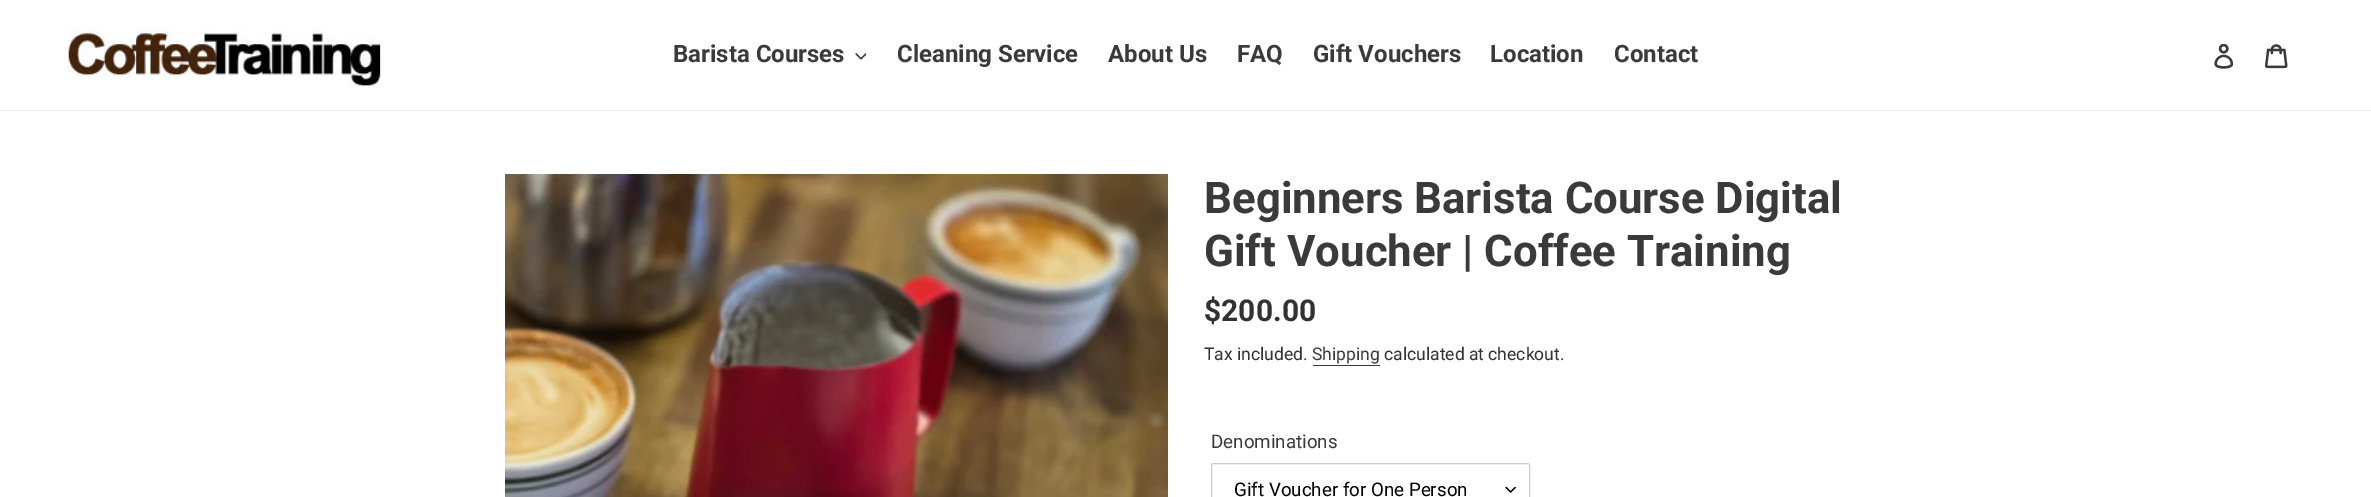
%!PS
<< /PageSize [2371 497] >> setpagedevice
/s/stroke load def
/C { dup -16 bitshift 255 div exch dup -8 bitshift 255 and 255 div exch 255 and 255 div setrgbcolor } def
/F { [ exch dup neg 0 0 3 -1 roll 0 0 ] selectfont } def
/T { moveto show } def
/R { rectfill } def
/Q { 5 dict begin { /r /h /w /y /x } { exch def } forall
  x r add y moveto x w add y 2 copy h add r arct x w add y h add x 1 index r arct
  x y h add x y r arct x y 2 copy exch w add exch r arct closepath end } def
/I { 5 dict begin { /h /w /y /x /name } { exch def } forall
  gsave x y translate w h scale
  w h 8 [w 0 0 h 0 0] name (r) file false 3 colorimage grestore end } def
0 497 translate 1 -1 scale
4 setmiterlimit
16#FFFFFF C
0 0 2371 497 R
16#EBEBEB C
0 110 2371 1 R
(1.rgb) 68 28 313 58 I
/Roboto-Bold 24 F
16#3A3A3A C
(Barista Courses) 673 62 T
(2.rgb) 855 53 11 7 I
(Cleaning Service) 897 62 T
(About Us) 1108 62 T
(FAQ) 1237 62 T
(Gift Vouchers) 1313 62 T
(Location) 1490 62 T
(Contact) 1614 62 T
(3.rgb) 2214 44 20 25 I
(4.rgb) 2265 44 23 25 I
(5.rgb) 505 174 663 323 I
/Roboto-Bold 43.75 F
(Beginners Barista Course Digital) 1204 213 T
(Gift Voucher | Coffee Training) 1204 266 T
/Roboto-Bold 30 F
16#333232 C
($200.00) 1204 321 T
/Roboto-Regular 17.5 F
(Tax included.) 1204 360 T
16#3A3A3A C
(Shipping) 1312 360 T
1313 365 67 1 R
16#333232 C
(calculated at checkout.) 1384 360 T
/Roboto-Regular 18.75 F
16#3A3A3A C
(Denominations) 1211 448 T
(6.rgb) 1505 486 11 7 I
16#CCCCCC C
1211.5 463.5 318 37 2 Q s
16#000000 C
(Gift Voucher for One Person) 1234 496 T
showpage
